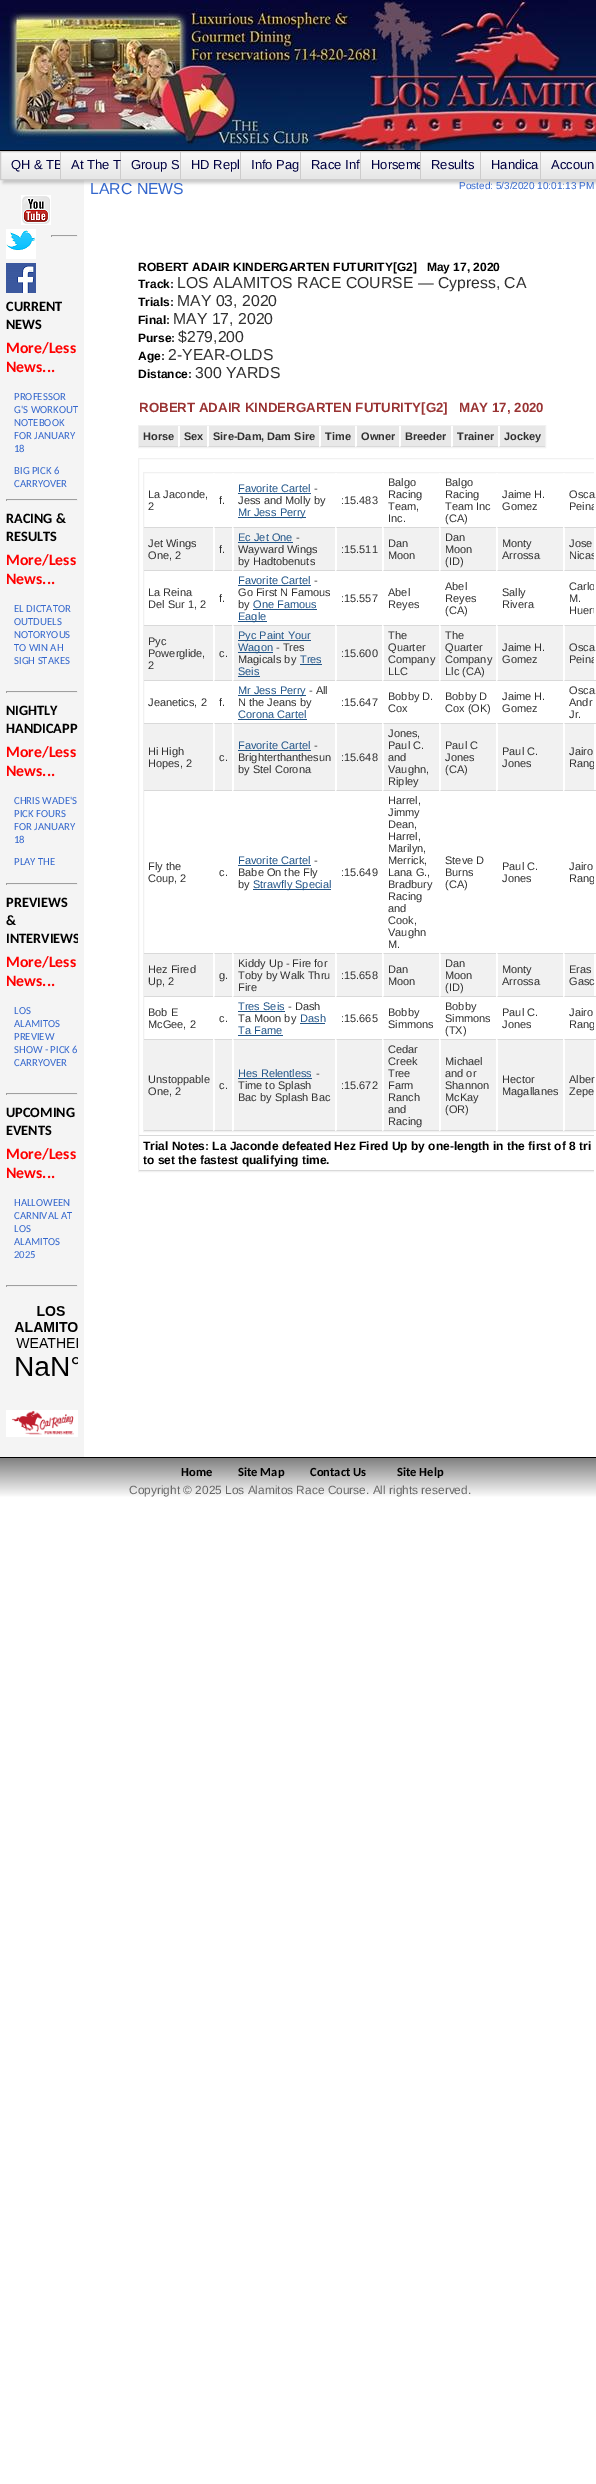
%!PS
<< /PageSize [596 2484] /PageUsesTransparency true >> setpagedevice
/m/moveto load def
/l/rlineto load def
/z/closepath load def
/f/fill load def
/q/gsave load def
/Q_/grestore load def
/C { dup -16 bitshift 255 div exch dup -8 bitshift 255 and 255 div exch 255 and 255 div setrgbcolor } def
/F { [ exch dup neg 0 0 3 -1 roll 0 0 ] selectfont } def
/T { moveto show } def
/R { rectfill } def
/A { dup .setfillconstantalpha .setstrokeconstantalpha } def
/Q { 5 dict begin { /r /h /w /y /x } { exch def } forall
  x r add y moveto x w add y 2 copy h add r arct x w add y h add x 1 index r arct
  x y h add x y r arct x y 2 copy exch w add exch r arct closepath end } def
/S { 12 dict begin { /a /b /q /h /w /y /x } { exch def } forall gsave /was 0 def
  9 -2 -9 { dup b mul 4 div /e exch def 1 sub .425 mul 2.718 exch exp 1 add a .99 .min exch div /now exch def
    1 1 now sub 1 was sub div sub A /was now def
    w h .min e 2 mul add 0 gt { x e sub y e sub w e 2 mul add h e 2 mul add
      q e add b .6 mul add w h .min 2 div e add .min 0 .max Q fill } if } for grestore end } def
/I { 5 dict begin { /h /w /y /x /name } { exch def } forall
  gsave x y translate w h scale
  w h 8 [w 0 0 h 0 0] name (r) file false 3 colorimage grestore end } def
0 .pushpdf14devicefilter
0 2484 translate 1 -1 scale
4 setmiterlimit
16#FFFFFF C
0 0 596 2484 R
16#000000 C
0 150 596 1 R
(1.rgb) 0 0 596 150 I
16#F4F4F4 C
0 180 84 1277 R
16#000000 C
3 154 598 29 0 1.5 .2 S
q 1 152 m 595 0 l 0 27 l -595 0 l z clip newpath
<< /ShadingType 2 /ColorSpace /DeviceRGB /Coords [300 152 300 179] /Extend [true true] /Function << /FunctionType 2 /Domain [0 1] /C0 [.98 .98 .98] /C1 [.902 .902 .902] /N 1 >> >> shfill Q_
16#CDCCCC C
.5 151.5 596 28 rectstroke
60 152 1 27 R
q
1 152 59 27 rectclip
/LiberationSans-Regular 13 F
16#000040 C
(QH & TB) 11 169 T
Q_
120 152 1 27 R
/LiberationSans-Regular 13 F
16#000040 C
(At The T) 71 169 T
16#CDCCCC C
180 152 1 27 R
16#000040 C
(Group S) 131 169 T
16#CDCCCC C
240 152 1 27 R
16#000040 C
(HD Repl) 191 169 T
16#CDCCCC C
300 152 1 27 R
16#000040 C
(Info Pag) 251 169 T
16#CDCCCC C
360 152 1 27 R
16#000040 C
(Race Inf) 311 169 T
16#CDCCCC C
420 152 1 27 R
q
361 152 59 27 rectclip
16#000040 C
(Horseme) 371 169 T
Q_
480 152 1 27 R
16#000040 C
(Results) 431 169 T
16#CDCCCC C
540 152 1 27 R
16#000040 C
(Handica) 491 169 T
(Accoun) 551 169 T
(2.rgb) 21 195 30 30 I
(3.rgb) 6 229 30 30 I
(4.rgb) 6 263 30 30 I
16#9F9F9F C
51 235 27 1 R
16#EEEEEE C
77 235 1 2 R
51 236 27 1 R
16#9F9F9F C
51 235 1 2 R
/Carlito-Bold 14.25 F
16#000000 C
(CURRENT) 6 311 T
(NEWS) 6 329 T
/Carlito-Bold 15.8 F
16#FF0000 C
(More/Less) 6 353 T
(News...) 6 372 T
/Carlito-Regular 10.75 F
16#3366CC C
(PROFESSOR) 14 400 T
(G'S WORKOUT) 14 413 T
(NOTEBOOK) 14 426 T
(FOR JANUARY) 14 439 T
(18) 14 452 T
(BIG PICK 6) 14 474 T
(CARRYOVER) 14 487 T
16#9F9F9F C
6 499 72 1 R
16#EEEEEE C
77 499 1 2 R
6 500 72 1 R
16#9F9F9F C
6 499 1 2 R
/Carlito-Bold 14.25 F
16#000000 C
(RACING &) 6 523 T
(RESULTS) 6 541 T
/Carlito-Bold 15.8 F
16#FF0000 C
(More/Less) 6 565 T
(News...) 6 584 T
/Carlito-Regular 10.75 F
16#3366CC C
(EL DICTATOR) 14 612 T
(OUTDUELS) 14 625 T
(NOTORYOUS) 14 638 T
(TO WIN AH) 14 651 T
(SIGH STAKES) 14 664 T
16#9F9F9F C
6 691 72 1 R
16#EEEEEE C
77 691 1 2 R
6 692 72 1 R
16#9F9F9F C
6 691 1 2 R
/Carlito-Bold 14.25 F
16#000000 C
(NIGHTLY) 6 715 T
(HANDICAPP) 6 733 T
/Carlito-Bold 15.8 F
16#FF0000 C
(More/Less) 6 757 T
(News...) 6 776 T
/Carlito-Regular 10.75 F
16#3366CC C
(CHRIS WADE'S) 14 804 T
(PICK FOURS) 14 817 T
(FOR JANUARY) 14 830 T
(18) 14 843 T
(PLAY THE) 14 865 T
16#9F9F9F C
6 883 72 1 R
16#EEEEEE C
77 883 1 2 R
6 884 72 1 R
16#9F9F9F C
6 883 1 2 R
/Carlito-Bold 14.25 F
16#000000 C
(PREVIEWS) 6 907 T
(&) 6 925 T
q
6 180 72 1277 rectclip
(INTERVIEWS) 6 943 T
Q_
/Carlito-Bold 15.8 F
16#FF0000 C
(More/Less) 6 967 T
(News...) 6 986 T
/Carlito-Regular 10.75 F
16#3366CC C
(LOS) 14 1014 T
(ALAMITOS) 14 1027 T
(PREVIEW) 14 1040 T
(SHOW - PICK 6) 14 1053 T
(CARRYOVER) 14 1066 T
16#9F9F9F C
6 1093 72 1 R
16#EEEEEE C
77 1093 1 2 R
6 1094 72 1 R
16#9F9F9F C
6 1093 1 2 R
/Carlito-Bold 14.25 F
16#000000 C
(UPCOMING) 6 1117 T
(EVENTS) 6 1135 T
/Carlito-Bold 15.8 F
16#FF0000 C
(More/Less) 6 1159 T
(News...) 6 1178 T
/Carlito-Regular 10.75 F
16#3366CC C
(HALLOWEEN) 14 1206 T
(CARNIVAL AT) 14 1219 T
(LOS) 14 1232 T
(ALAMITOS) 14 1245 T
(2025) 14 1258 T
16#9F9F9F C
6 1285 72 1 R
16#EEEEEE C
77 1285 1 2 R
6 1286 72 1 R
16#9F9F9F C
6 1285 1 2 R
(5.rgb) 14 1306 64 70 I
(6.rgb) 6 1410 72 27 I
/LiberationSans-Regular 15.8 F
16#3366CC C
(LARC NEWS) 90 194 T
/LiberationSans-Regular 10 F
(Posted: 5/3/2020 10:01:13 PM) 459 189 T
/LiberationSans-Bold 12 F
16#000000 C
(ROBERT ADAIR KINDERGARTEN FUTURITY[G2]   May 17, 2020) 138 271 T
(Track:) 138 288 T
/LiberationSans-Regular 15.8 F
16#303030 C
(LOS ALAMITOS RACE COURSE — Cypress, CA) 177 288 T
/LiberationSans-Bold 12 F
16#000000 C
(Trials:) 138 306 T
/LiberationSans-Regular 15.8 F
16#303030 C
(MAY 03, 2020) 177 306 T
/LiberationSans-Bold 12 F
16#000000 C
(Final:) 138 324 T
/LiberationSans-Regular 15.8 F
16#303030 C
(MAY 17, 2020) 173 324 T
/LiberationSans-Bold 12 F
16#000000 C
(Purse:) 138 342 T
/LiberationSans-Regular 15.8 F
16#303030 C
($279,200) 178 342 T
/LiberationSans-Bold 12 F
16#000000 C
(Age:) 138 360 T
/LiberationSans-Regular 15.8 F
16#303030 C
(2-YEAR-OLDS) 168 360 T
/LiberationSans-Bold 12 F
16#000000 C
(Distance:) 138 378 T
/LiberationSans-Regular 15.8 F
16#303030 C
(300 YARDS) 195 378 T
/LiberationSans-Bold 13.3 F
16#993333 C
(ROBERT ADAIR KINDERGARTEN FUTURITY[G2]   MAY 17, 2020) 139 412 T
16#F1F1F1 C
138.5 425.5 407 22 rectstroke
16#E8E8E8 C
139 426 39 20 R
16#D9D9D9 C
139 446 39 1 R
/LiberationSans-Bold 11 F
16#303030 C
(Horse) 143 440 T
16#E8E8E8 C
178 426 367 21 R
16#D9D9D9 C
207 447 m -29 0 l 2 -1 l 27 0 l z f
16#FFFFFF C
178 447 m 0 -21 l 2 0 l 0 20 l z f
16#303030 C
(Sex) 184 440 T
16#D9D9D9 C
319 447 m -112 0 l 2 -1 l 110 0 l z f
16#FFFFFF C
207 447 m 0 -21 l 2 0 l 0 20 l z f
16#303030 C
(Sire-Dam, Dam Sire) 213 440 T
16#D9D9D9 C
355 447 m -36 0 l 2 -1 l 34 0 l z f
16#FFFFFF C
319 447 m 0 -21 l 2 0 l 0 20 l z f
16#303030 C
(Time) 325 440 T
16#D9D9D9 C
399 447 m -44 0 l 2 -1 l 42 0 l z f
16#FFFFFF C
355 447 m 0 -21 l 2 0 l 0 20 l z f
16#303030 C
(Owner) 361 440 T
16#D9D9D9 C
451 447 m -52 0 l 2 -1 l 50 0 l z f
16#FFFFFF C
399 447 m 0 -21 l 2 0 l 0 20 l z f
16#303030 C
(Breeder) 405 440 T
16#D9D9D9 C
498 447 m -47 0 l 2 -1 l 45 0 l z f
16#FFFFFF C
451 447 m 0 -21 l 2 0 l 0 20 l z f
16#303030 C
(Trainer) 457 440 T
16#D9D9D9 C
545 447 m -47 0 l 2 -1 l 45 0 l z f
16#FFFFFF C
498 447 m 0 -21 l 2 0 l 0 20 l z f
16#303030 C
(Jockey) 504 440 T
q
90 180 504 1055 rectclip
16#F1F1F1 C
138.5 458.5 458 713 rectstroke
Q_
16#D9D9D9 C
139 1135 455 1 R
q
90 180 504 1055 rectclip
16#F1F1F1 C
143.5 472.5 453 659 rectstroke
Q_
144 527 69 1 R
/LiberationSans-Regular 11 F
16#303030 C
(La Jaconde,) 148 498 T
(2) 148 510 T
16#D9D9D9 C
232 528 m -19 0 l 2 -1 l 17 0 l z f
16#FFFFFF C
213 528 m 0 -55 l 2 0 l 0 54 l z f
16#303030 C
(f.) 219 504 T
16#D9D9D9 C
335 528 m -103 0 l 2 -1 l 101 0 l z f
16#FFFFFF C
232 528 m 0 -55 l 2 0 l 0 54 l z f
16#225588 C
(Favorite Cartel) 238 492 T
238 493 73 1 R
16#303030 C
(-) 314 492 T
(Jess and Molly by) 238 504 T
16#225588 C
238 517 68 1 R
(Mr Jess Perry) 238 516 T
16#D9D9D9 C
382 528 m -47 0 l 2 -1 l 45 0 l z f
16#FFFFFF C
335 528 m 0 -55 l 2 0 l 0 54 l z f
16#303030 C
(:15.483) 341 504 T
16#D9D9D9 C
439 528 m -57 0 l 2 -1 l 55 0 l z f
16#FFFFFF C
382 528 m 0 -55 l 2 0 l 0 54 l z f
16#303030 C
(Balgo) 388 486 T
(Racing) 388 498 T
(Team,) 388 510 T
(Inc.) 388 522 T
16#D9D9D9 C
496 528 m -57 0 l 2 -1 l 55 0 l z f
16#FFFFFF C
439 528 m 0 -55 l 2 0 l 0 54 l z f
16#303030 C
(Balgo) 445 486 T
(Racing) 445 498 T
(Team Inc) 445 510 T
(\(CA\)) 445 522 T
16#D9D9D9 C
563 528 m -67 0 l 2 -1 l 65 0 l z f
16#FFFFFF C
496 528 m 0 -55 l 2 0 l 0 54 l z f
16#303030 C
(Jaime H.) 502 498 T
(Gomez) 502 510 T
16#D9D9D9 C
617 528 m -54 0 l 2 -1 l 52 0 l z f
16#FFFFFF C
563 528 m 0 -55 l 2 0 l 0 54 l z f
16#303030 C
(Osca) 569 498 T
q
90 180 504 1055 rectclip
(Peina) 569 510 T
Q_
16#F1F1F1 C
144 528 450 43 R
16#D9D9D9 C
144 570 69 1 R
16#303030 C
(Jet Wings) 148 547 T
(One, 2) 148 559 T
16#D9D9D9 C
232 571 m -19 0 l 2 -1 l 17 0 l z f
16#FFFFFF C
213 571 m 0 -43 l 2 0 l 0 42 l z f
16#303030 C
(f.) 219 553 T
16#D9D9D9 C
335 571 m -103 0 l 2 -1 l 101 0 l z f
16#FFFFFF C
232 571 m 0 -43 l 2 0 l 0 42 l z f
16#225588 C
(Ec Jet One) 238 541 T
238 542 55 1 R
16#303030 C
(-) 296 541 T
(Wayward Wings) 238 553 T
(by Hadtobenuts) 238 565 T
16#D9D9D9 C
382 571 m -47 0 l 2 -1 l 45 0 l z f
16#FFFFFF C
335 571 m 0 -43 l 2 0 l 0 42 l z f
16#303030 C
(:15.511) 341 553 T
16#D9D9D9 C
439 571 m -57 0 l 2 -1 l 55 0 l z f
16#FFFFFF C
382 571 m 0 -43 l 2 0 l 0 42 l z f
16#303030 C
(Dan) 388 547 T
(Moon) 388 559 T
16#D9D9D9 C
496 571 m -57 0 l 2 -1 l 55 0 l z f
16#FFFFFF C
439 571 m 0 -43 l 2 0 l 0 42 l z f
16#303030 C
(Dan) 445 541 T
(Moon) 445 553 T
(\(ID\)) 445 565 T
16#D9D9D9 C
563 571 m -67 0 l 2 -1 l 65 0 l z f
16#FFFFFF C
496 571 m 0 -43 l 2 0 l 0 42 l z f
16#303030 C
(Monty) 502 547 T
(Arrossa) 502 559 T
16#D9D9D9 C
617 571 m -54 0 l 2 -1 l 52 0 l z f
16#FFFFFF C
563 571 m 0 -43 l 2 0 l 0 42 l z f
16#303030 C
(Jose) 569 547 T
q
90 180 504 1055 rectclip
(Nicas) 569 559 T
Q_
16#D9D9D9 C
144 625 69 1 R
16#303030 C
(La Reina) 148 596 T
(Del Sur 1, 2) 148 608 T
16#D9D9D9 C
232 626 m -19 0 l 2 -1 l 17 0 l z f
16#FFFFFF C
213 626 m 0 -55 l 2 0 l 0 54 l z f
16#303030 C
(f.) 219 602 T
16#D9D9D9 C
335 626 m -103 0 l 2 -1 l 101 0 l z f
16#FFFFFF C
232 626 m 0 -55 l 2 0 l 0 54 l z f
16#225588 C
(Favorite Cartel) 238 584 T
238 585 73 1 R
16#303030 C
(-) 314 584 T
(Go First N Famous) 238 596 T
(by) 238 608 T
16#225588 C
(One Famous) 253 608 T
253 609 64 1 R
238 621 29 1 R
(Eagle) 238 620 T
16#D9D9D9 C
382 626 m -47 0 l 2 -1 l 45 0 l z f
16#FFFFFF C
335 626 m 0 -55 l 2 0 l 0 54 l z f
16#303030 C
(:15.557) 341 602 T
16#D9D9D9 C
439 626 m -57 0 l 2 -1 l 55 0 l z f
16#FFFFFF C
382 626 m 0 -55 l 2 0 l 0 54 l z f
16#303030 C
(Abel) 388 596 T
(Reyes) 388 608 T
16#D9D9D9 C
496 626 m -57 0 l 2 -1 l 55 0 l z f
16#FFFFFF C
439 626 m 0 -55 l 2 0 l 0 54 l z f
16#303030 C
(Abel) 445 590 T
(Reyes) 445 602 T
(\(CA\)) 445 614 T
16#D9D9D9 C
563 626 m -67 0 l 2 -1 l 65 0 l z f
16#FFFFFF C
496 626 m 0 -55 l 2 0 l 0 54 l z f
16#303030 C
(Sally) 502 596 T
(Rivera) 502 608 T
16#D9D9D9 C
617 626 m -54 0 l 2 -1 l 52 0 l z f
16#FFFFFF C
563 626 m 0 -55 l 2 0 l 0 54 l z f
q
90 180 504 1055 rectclip
16#303030 C
(Carlo) 569 590 T
Q_
16#303030 C
(M.) 569 602 T
q
90 180 504 1055 rectclip
(Huert) 569 614 T
Q_
16#F1F1F1 C
144 626 450 55 R
16#D9D9D9 C
144 680 69 1 R
16#303030 C
(Pyc) 148 645 T
(Powerglide,) 148 657 T
(2) 148 669 T
16#D9D9D9 C
232 681 m -19 0 l 2 -1 l 17 0 l z f
16#FFFFFF C
213 681 m 0 -55 l 2 0 l 0 54 l z f
16#303030 C
(c.) 219 657 T
16#D9D9D9 C
335 681 m -103 0 l 2 -1 l 101 0 l z f
16#FFFFFF C
232 681 m 0 -55 l 2 0 l 0 54 l z f
16#225588 C
238 640 73 1 R
(Pyc Paint Your) 238 639 T
238 652 35 1 R
(Wagon) 238 651 T
16#303030 C
(- Tres) 276 651 T
(Magicals by) 238 663 T
16#225588 C
(Tres) 300 663 T
300 664 22 1 R
(Seis) 238 675 T
238 676 22 1 R
16#D9D9D9 C
382 681 m -47 0 l 2 -1 l 45 0 l z f
16#FFFFFF C
335 681 m 0 -55 l 2 0 l 0 54 l z f
16#303030 C
(:15.600) 341 657 T
16#D9D9D9 C
439 681 m -57 0 l 2 -1 l 55 0 l z f
16#FFFFFF C
382 681 m 0 -55 l 2 0 l 0 54 l z f
16#303030 C
(The) 388 639 T
(Quarter) 388 651 T
(Company) 388 663 T
(LLC) 388 675 T
16#D9D9D9 C
496 681 m -57 0 l 2 -1 l 55 0 l z f
16#FFFFFF C
439 681 m 0 -55 l 2 0 l 0 54 l z f
16#303030 C
(The) 445 639 T
(Quarter) 445 651 T
(Company) 445 663 T
(Llc \(CA\)) 445 675 T
16#D9D9D9 C
563 681 m -67 0 l 2 -1 l 65 0 l z f
16#FFFFFF C
496 681 m 0 -55 l 2 0 l 0 54 l z f
16#303030 C
(Jaime H.) 502 651 T
(Gomez) 502 663 T
16#D9D9D9 C
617 681 m -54 0 l 2 -1 l 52 0 l z f
16#FFFFFF C
563 681 m 0 -55 l 2 0 l 0 54 l z f
16#303030 C
(Osca) 569 651 T
q
90 180 504 1055 rectclip
(Peina) 569 663 T
Q_
16#D9D9D9 C
144 723 69 1 R
16#303030 C
(Jeanetics, 2) 148 706 T
16#D9D9D9 C
232 724 m -19 0 l 2 -1 l 17 0 l z f
16#FFFFFF C
213 724 m 0 -43 l 2 0 l 0 42 l z f
16#303030 C
(f.) 219 706 T
16#D9D9D9 C
335 724 m -103 0 l 2 -1 l 101 0 l z f
16#FFFFFF C
232 724 m 0 -43 l 2 0 l 0 42 l z f
16#225588 C
238 695 68 1 R
(Mr Jess Perry) 238 694 T
16#303030 C
(- All) 309 694 T
(N the Jeans by) 238 706 T
16#225588 C
(Corona Cartel) 238 718 T
238 719 69 1 R
16#D9D9D9 C
382 724 m -47 0 l 2 -1 l 45 0 l z f
16#FFFFFF C
335 724 m 0 -43 l 2 0 l 0 42 l z f
16#303030 C
(:15.647) 341 706 T
16#D9D9D9 C
439 724 m -57 0 l 2 -1 l 55 0 l z f
16#FFFFFF C
382 724 m 0 -43 l 2 0 l 0 42 l z f
16#303030 C
(Bobby D.) 388 700 T
(Cox) 388 712 T
16#D9D9D9 C
496 724 m -57 0 l 2 -1 l 55 0 l z f
16#FFFFFF C
439 724 m 0 -43 l 2 0 l 0 42 l z f
16#303030 C
(Bobby D) 445 700 T
(Cox \(OK\)) 445 712 T
16#D9D9D9 C
563 724 m -67 0 l 2 -1 l 65 0 l z f
16#FFFFFF C
496 724 m 0 -43 l 2 0 l 0 42 l z f
16#303030 C
(Jaime H.) 502 700 T
(Gomez) 502 712 T
16#D9D9D9 C
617 724 m -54 0 l 2 -1 l 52 0 l z f
16#FFFFFF C
563 724 m 0 -43 l 2 0 l 0 42 l z f
16#303030 C
(Osca) 569 694 T
(Andr) 569 706 T
(Jr.) 569 718 T
16#F1F1F1 C
144 724 450 67 R
16#D9D9D9 C
144 790 69 1 R
16#303030 C
(Hi High) 148 755 T
(Hopes, 2) 148 767 T
16#D9D9D9 C
232 791 m -19 0 l 2 -1 l 17 0 l z f
16#FFFFFF C
213 791 m 0 -67 l 2 0 l 0 66 l z f
16#303030 C
(c.) 219 761 T
16#D9D9D9 C
335 791 m -103 0 l 2 -1 l 101 0 l z f
16#FFFFFF C
232 791 m 0 -67 l 2 0 l 0 66 l z f
16#225588 C
(Favorite Cartel) 238 749 T
238 750 73 1 R
16#303030 C
(-) 314 749 T
(Brighterthanthesun) 238 761 T
(by Stel Corona) 238 773 T
16#D9D9D9 C
382 791 m -47 0 l 2 -1 l 45 0 l z f
16#FFFFFF C
335 791 m 0 -67 l 2 0 l 0 66 l z f
16#303030 C
(:15.648) 341 761 T
16#D9D9D9 C
439 791 m -57 0 l 2 -1 l 55 0 l z f
16#FFFFFF C
382 791 m 0 -67 l 2 0 l 0 66 l z f
16#303030 C
(Jones,) 388 737 T
(Paul C.) 388 749 T
(and) 388 761 T
(Vaughn,) 388 773 T
(Ripley) 388 785 T
16#D9D9D9 C
496 791 m -57 0 l 2 -1 l 55 0 l z f
16#FFFFFF C
439 791 m 0 -67 l 2 0 l 0 66 l z f
16#303030 C
(Paul C) 445 749 T
(Jones) 445 761 T
(\(CA\)) 445 773 T
16#D9D9D9 C
563 791 m -67 0 l 2 -1 l 65 0 l z f
16#FFFFFF C
496 791 m 0 -67 l 2 0 l 0 66 l z f
16#303030 C
(Paul C.) 502 755 T
(Jones) 502 767 T
16#D9D9D9 C
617 791 m -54 0 l 2 -1 l 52 0 l z f
16#FFFFFF C
563 791 m 0 -67 l 2 0 l 0 66 l z f
16#303030 C
(Jairo) 569 755 T
q
90 180 504 1055 rectclip
(Rang) 569 767 T
Q_
16#D9D9D9 C
144 953 69 1 R
16#303030 C
(Fly the) 148 870 T
(Coup, 2) 148 882 T
16#D9D9D9 C
232 954 m -19 0 l 2 -1 l 17 0 l z f
16#FFFFFF C
213 954 m 0 -163 l 2 0 l 0 162 l z f
16#303030 C
(c.) 219 876 T
16#D9D9D9 C
335 954 m -103 0 l 2 -1 l 101 0 l z f
16#FFFFFF C
232 954 m 0 -163 l 2 0 l 0 162 l z f
16#225588 C
(Favorite Cartel) 238 864 T
238 865 73 1 R
16#303030 C
(-) 314 864 T
(Babe On the Fly) 238 876 T
(by) 238 888 T
16#225588 C
253 889 78 1 R
(Strawfly Special) 253 888 T
16#D9D9D9 C
382 954 m -47 0 l 2 -1 l 45 0 l z f
16#FFFFFF C
335 954 m 0 -163 l 2 0 l 0 162 l z f
16#303030 C
(:15.649) 341 876 T
16#D9D9D9 C
439 954 m -57 0 l 2 -1 l 55 0 l z f
16#FFFFFF C
382 954 m 0 -163 l 2 0 l 0 162 l z f
16#303030 C
(Harrel,) 388 804 T
(Jimmy) 388 816 T
(Dean,) 388 828 T
(Harrel,) 388 840 T
(Marilyn,) 388 852 T
(Merrick,) 388 864 T
(Lana G.,) 388 876 T
(Bradbury) 388 888 T
(Racing) 388 900 T
(and) 388 912 T
(Cook,) 388 924 T
(Vaughn) 388 936 T
(M.) 388 948 T
16#D9D9D9 C
496 954 m -57 0 l 2 -1 l 55 0 l z f
16#FFFFFF C
439 954 m 0 -163 l 2 0 l 0 162 l z f
16#303030 C
(Steve D) 445 864 T
(Burns) 445 876 T
(\(CA\)) 445 888 T
16#D9D9D9 C
563 954 m -67 0 l 2 -1 l 65 0 l z f
16#FFFFFF C
496 954 m 0 -163 l 2 0 l 0 162 l z f
16#303030 C
(Paul C.) 502 870 T
(Jones) 502 882 T
16#D9D9D9 C
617 954 m -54 0 l 2 -1 l 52 0 l z f
16#FFFFFF C
563 954 m 0 -163 l 2 0 l 0 162 l z f
16#303030 C
(Jairo) 569 870 T
q
90 180 504 1055 rectclip
(Rang) 569 882 T
Q_
16#F1F1F1 C
144 954 450 43 R
16#D9D9D9 C
144 996 69 1 R
16#303030 C
(Hez Fired) 148 973 T
(Up, 2) 148 985 T
16#D9D9D9 C
232 997 m -19 0 l 2 -1 l 17 0 l z f
16#FFFFFF C
213 997 m 0 -43 l 2 0 l 0 42 l z f
16#303030 C
(g.) 219 979 T
16#D9D9D9 C
335 997 m -103 0 l 2 -1 l 101 0 l z f
16#FFFFFF C
232 997 m 0 -43 l 2 0 l 0 42 l z f
16#303030 C
(Kiddy Up - Fire for) 238 967 T
(Toby by Walk Thru) 238 979 T
(Fire) 238 991 T
16#D9D9D9 C
382 997 m -47 0 l 2 -1 l 45 0 l z f
16#FFFFFF C
335 997 m 0 -43 l 2 0 l 0 42 l z f
16#303030 C
(:15.658) 341 979 T
16#D9D9D9 C
439 997 m -57 0 l 2 -1 l 55 0 l z f
16#FFFFFF C
382 997 m 0 -43 l 2 0 l 0 42 l z f
16#303030 C
(Dan) 388 973 T
(Moon) 388 985 T
16#D9D9D9 C
496 997 m -57 0 l 2 -1 l 55 0 l z f
16#FFFFFF C
439 997 m 0 -43 l 2 0 l 0 42 l z f
16#303030 C
(Dan) 445 967 T
(Moon) 445 979 T
(\(ID\)) 445 991 T
16#D9D9D9 C
563 997 m -67 0 l 2 -1 l 65 0 l z f
16#FFFFFF C
496 997 m 0 -43 l 2 0 l 0 42 l z f
16#303030 C
(Monty) 502 973 T
(Arrossa) 502 985 T
16#D9D9D9 C
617 997 m -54 0 l 2 -1 l 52 0 l z f
16#FFFFFF C
563 997 m 0 -43 l 2 0 l 0 42 l z f
16#303030 C
(Eras) 569 973 T
(Gasc) 569 985 T
16#D9D9D9 C
144 1039 69 1 R
16#303030 C
(Bob E) 148 1016 T
(McGee, 2) 148 1028 T
16#D9D9D9 C
232 1040 m -19 0 l 2 -1 l 17 0 l z f
16#FFFFFF C
213 1040 m 0 -43 l 2 0 l 0 42 l z f
16#303030 C
(c.) 219 1022 T
16#D9D9D9 C
335 1040 m -103 0 l 2 -1 l 101 0 l z f
16#FFFFFF C
232 1040 m 0 -43 l 2 0 l 0 42 l z f
16#225588 C
(Tres Seis) 238 1010 T
238 1011 47 1 R
16#303030 C
(- Dash) 288 1010 T
(Ta Moon by) 238 1022 T
16#225588 C
(Dash) 300 1022 T
300 1023 25 1 R
(Ta Fame) 238 1034 T
238 1035 45 1 R
16#D9D9D9 C
382 1040 m -47 0 l 2 -1 l 45 0 l z f
16#FFFFFF C
335 1040 m 0 -43 l 2 0 l 0 42 l z f
16#303030 C
(:15.665) 341 1022 T
16#D9D9D9 C
439 1040 m -57 0 l 2 -1 l 55 0 l z f
16#FFFFFF C
382 1040 m 0 -43 l 2 0 l 0 42 l z f
16#303030 C
(Bobby) 388 1016 T
(Simmons) 388 1028 T
16#D9D9D9 C
496 1040 m -57 0 l 2 -1 l 55 0 l z f
16#FFFFFF C
439 1040 m 0 -43 l 2 0 l 0 42 l z f
16#303030 C
(Bobby) 445 1010 T
(Simmons) 445 1022 T
(\(TX\)) 445 1034 T
16#D9D9D9 C
563 1040 m -67 0 l 2 -1 l 65 0 l z f
16#FFFFFF C
496 1040 m 0 -43 l 2 0 l 0 42 l z f
16#303030 C
(Paul C.) 502 1016 T
(Jones) 502 1028 T
16#D9D9D9 C
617 1040 m -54 0 l 2 -1 l 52 0 l z f
16#FFFFFF C
563 1040 m 0 -43 l 2 0 l 0 42 l z f
16#303030 C
(Jairo) 569 1016 T
q
90 180 504 1055 rectclip
(Rang) 569 1028 T
Q_
16#F1F1F1 C
144 1040 450 91 R
16#D9D9D9 C
144 1130 69 1 R
16#303030 C
(Unstoppable) 148 1083 T
(One, 2) 148 1095 T
16#D9D9D9 C
232 1131 m -19 0 l 2 -1 l 17 0 l z f
16#FFFFFF C
213 1131 m 0 -91 l 2 0 l 0 90 l z f
16#303030 C
(c.) 219 1089 T
16#D9D9D9 C
335 1131 m -103 0 l 2 -1 l 101 0 l z f
16#FFFFFF C
232 1131 m 0 -91 l 2 0 l 0 90 l z f
16#225588 C
(Hes Relentless) 238 1077 T
238 1078 74 1 R
16#303030 C
(-) 316 1077 T
(Time to Splash) 238 1089 T
(Bac by Splash Bac) 238 1101 T
16#D9D9D9 C
382 1131 m -47 0 l 2 -1 l 45 0 l z f
16#FFFFFF C
335 1131 m 0 -91 l 2 0 l 0 90 l z f
16#303030 C
(:15.672) 341 1089 T
16#D9D9D9 C
439 1131 m -57 0 l 2 -1 l 55 0 l z f
16#FFFFFF C
382 1131 m 0 -91 l 2 0 l 0 90 l z f
16#303030 C
(Cedar) 388 1053 T
(Creek) 388 1065 T
(Tree) 388 1077 T
(Farm) 388 1089 T
(Ranch) 388 1101 T
(and) 388 1113 T
(Racing) 388 1125 T
16#D9D9D9 C
496 1131 m -57 0 l 2 -1 l 55 0 l z f
16#FFFFFF C
439 1131 m 0 -91 l 2 0 l 0 90 l z f
16#303030 C
(Michael) 445 1065 T
(and or) 445 1077 T
(Shannon) 445 1089 T
(McKay) 445 1101 T
(\(OR\)) 445 1113 T
16#D9D9D9 C
563 1131 m -67 0 l 2 -1 l 65 0 l z f
16#FFFFFF C
496 1131 m 0 -91 l 2 0 l 0 90 l z f
16#303030 C
(Hector) 502 1083 T
(Magallanes) 502 1095 T
16#D9D9D9 C
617 1131 m -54 0 l 2 -1 l 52 0 l z f
16#FFFFFF C
563 1131 m 0 -91 l 2 0 l 0 90 l z f
16#303030 C
(Alber) 569 1083 T
(Zepe) 569 1095 T
16#D9D9D9 C
139 1170 455 1 R
/LiberationSans-Bold 12 F
16#000000 C
(Trial Notes: La Jaconde defeated Hez Fired Up by one-length in the first of 8 tri) 143 1150 T
(to set the fastest qualifying time.) 143 1164 T
q 0 1458 m 596 0 l 0 39 l -596 0 l z clip newpath
<< /ShadingType 2 /ColorSpace /DeviceRGB /Coords [0 1458 0 1498] /Extend [true true] /Function << /FunctionType 2 /Domain [0 1] /C0 [.502 .502 .502] /C1 [1 1 1] /N 1 >> >> shfill Q_
0 1457 596 1 R
/Carlito-Bold 12.5 F
(Home) 181 1476 T
(Site Map) 238 1476 T
(Contact Us) 310 1476 T
(Site Help) 397 1476 T
/LiberationSans-Regular 11.9 F
16#666666 C
(Copyright © 2025 Los Alamitos Race Course. All rights reserved.) 129 1494 T
.poppdf14devicefilter showpage
